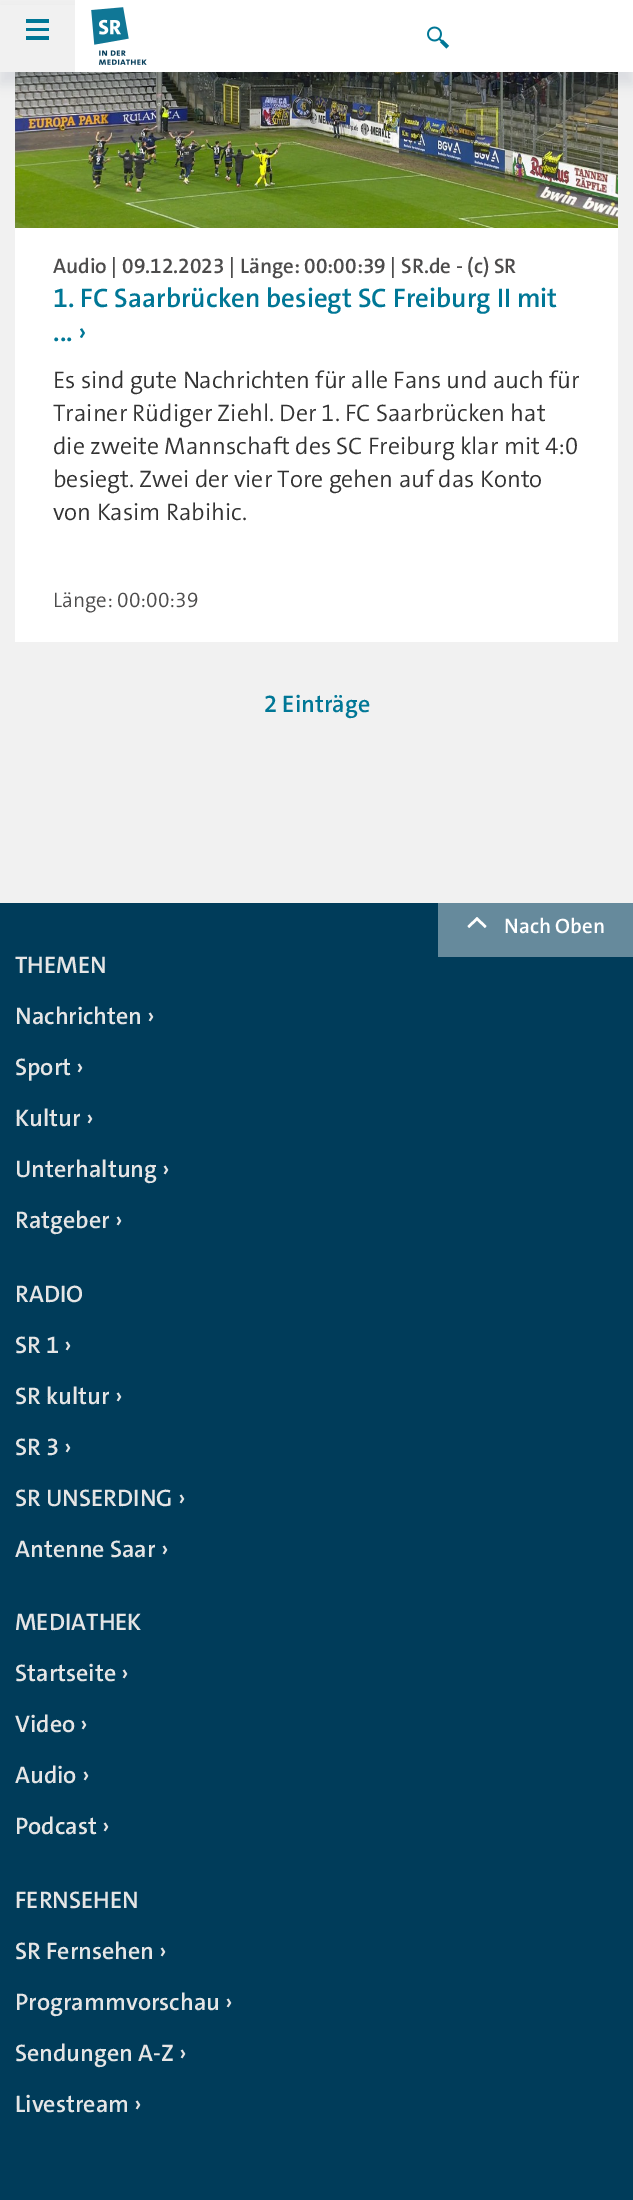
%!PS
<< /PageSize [633 2200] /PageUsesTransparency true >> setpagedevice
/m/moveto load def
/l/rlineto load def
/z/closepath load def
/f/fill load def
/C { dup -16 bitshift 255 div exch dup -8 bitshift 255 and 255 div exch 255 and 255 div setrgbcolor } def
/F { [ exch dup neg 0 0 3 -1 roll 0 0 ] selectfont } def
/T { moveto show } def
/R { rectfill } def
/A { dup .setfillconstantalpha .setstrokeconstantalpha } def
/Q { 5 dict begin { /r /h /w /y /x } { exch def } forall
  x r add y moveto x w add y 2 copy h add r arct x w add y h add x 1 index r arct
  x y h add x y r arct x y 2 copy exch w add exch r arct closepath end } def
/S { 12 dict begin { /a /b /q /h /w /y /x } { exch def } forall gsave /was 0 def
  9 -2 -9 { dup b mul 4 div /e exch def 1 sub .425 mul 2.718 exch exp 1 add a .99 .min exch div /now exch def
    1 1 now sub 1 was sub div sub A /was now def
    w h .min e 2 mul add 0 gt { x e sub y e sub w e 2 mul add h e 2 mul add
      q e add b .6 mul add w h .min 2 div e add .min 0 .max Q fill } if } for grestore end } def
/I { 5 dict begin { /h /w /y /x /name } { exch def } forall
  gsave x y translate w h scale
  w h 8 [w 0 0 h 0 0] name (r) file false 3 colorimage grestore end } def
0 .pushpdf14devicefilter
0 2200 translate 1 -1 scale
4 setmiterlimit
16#F1F1F1 C
0 0 633 2200 R
(3.rgb) 15 72 603 156 I
16#092E49 C
0 12 633 72 0 6 .1 S
16#FFFFFF C
75 0 558 72 R
(1.rgb) 91 7 56 58 I
(2.rgb) 427 26 23 23 I
16#F1F1F1 C
0 5 75 67 R
16#007796 C
26 19 23 4 R
26 28 23 3 R
26 36 23 4 R
16#FFFFFF C
15 228 603 414 R
/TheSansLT-SemiBold 21 F
16#4D4C4C C
(Audio | 09.12.2023 | Länge: 00:00:39 | SR.de - \(c\) SR) 53 273 T
/TheSansLT-SemiBold 27 F
16#007796 C
(1. FC Saarbrücken besiegt SC Freiburg II mit) 53 307 T
(... ›) 53 341 T
/TheSansLT-Light 24 F
16#333333 C
(Es sind gute Nachrichten für alle Fans und auch für) 53 388 T
(Trainer Rüdiger Ziehl. Der 1. FC Saarbrücken hat) 53 421 T
(die zweite Mannschaft des SC Freiburg klar mit 4:0) 53 454 T
(besiegt. Zwei der vier Tore gehen auf das Konto) 53 487 T
(von Kasim Rabihic.) 53 520 T
/TheSansLT-Light 21 F
16#4D4C4C C
(Länge: 00:00:39) 53 607 T
/TheSansLT-SemiBold 24 F
16#007796 C
(2 Einträge) 264 712 T
16#003C5A C
0 903 633 1297 R
16#668A9C C
438 903 195 54 R
16#FFFFFF C
485 928 m -8 -7.5 l -8 7.5 l -1.5 -2 l 9.5 -9 l 9.5 9 l z f
/TheSansLT-SemiBold 21 F
(Nach Oben) 504 933 T
/TheSansLT-SemiBold 24 F
16#E5E5E5 C
(THEMEN) 15 973 T
(Nachrichten ›) 15 1024 T
(Sport ›) 15 1075 T
(Kultur ›) 15 1126 T
(Unterhaltung ›) 15 1177 T
(Ratgeber ›) 15 1228 T
(RADIO) 15 1302 T
(SR 1 ›) 15 1353 T
(SR kultur ›) 15 1404 T
(SR 3 ›) 15 1455 T
(SR UNSERDING ›) 15 1506 T
(Antenne Saar ›) 15 1557 T
(MEDIATHEK) 15 1630 T
(Startseite ›) 15 1681 T
(Video ›) 15 1732 T
(Audio ›) 15 1783 T
(Podcast ›) 15 1834 T
(FERNSEHEN) 15 1908 T
(SR Fernsehen ›) 15 1959 T
(Programmvorschau ›) 15 2010 T
(Sendungen A-Z ›) 15 2061 T
(Livestream ›) 15 2112 T
.poppdf14devicefilter showpage
